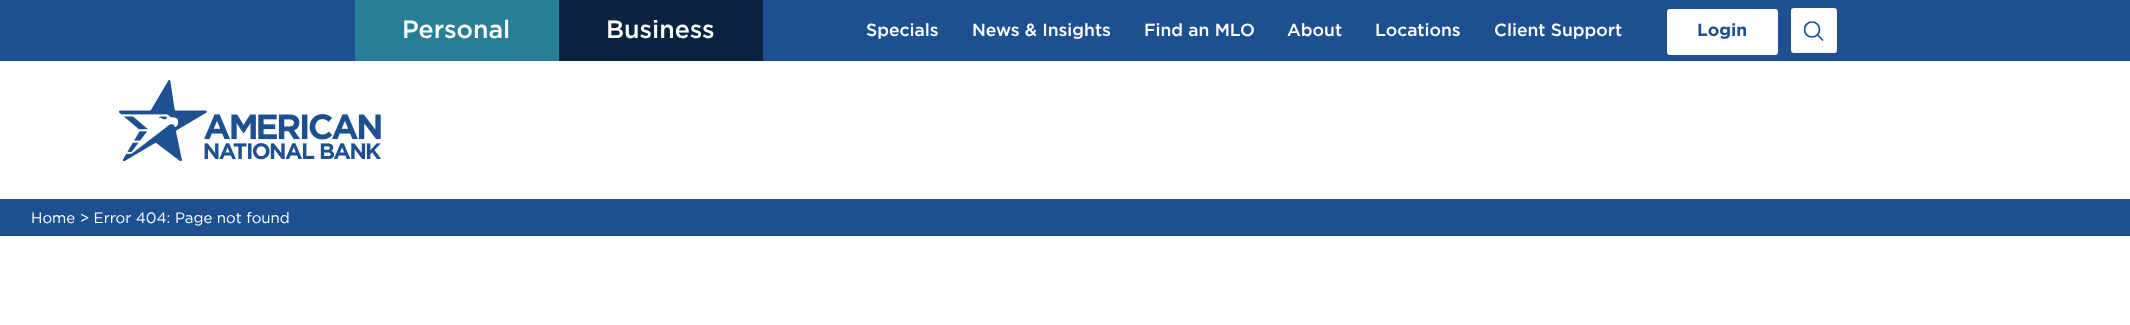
<svg xmlns="http://www.w3.org/2000/svg" width="2130" height="325" viewBox="0 0 2130 325">
  <defs>
    <clipPath id="clip1"><path d="M1804 21h20v20H1804z"/></clipPath>
  </defs>
  <rect width="100%" height="100%" fill="#fff"/>
  <path d="M0 0h2130v61H0z" fill="#1d4f91"/>
  <path d="M355 0h204v61H355z" fill="#267e97"/>
  <path d="M559 0h204v61H559z" fill="#0c2340"/>
  <rect x="1665.5" y="7.5" width="114" height="49" rx="4.5" fill="#fff" stroke="#1d4f91" stroke-width="3"/>
  <rect x="1789.5" y="6.5" width="49" height="48" rx="4.5" fill="#fff" stroke="#1d4f91" stroke-width="3"/>
  <g clip-path="url(#clip1)">
    <circle cx="1812" cy="29.5" r="7.5" fill="none" stroke="#1d4f91" stroke-width="1.7"/>
  </g>
  <path d="M1818 35.5L1822.5 40" fill="none" stroke="#1d4f91" stroke-width="1.7" stroke-linecap="round" stroke-linejoin="round"/>
  <image x="119" y="80" width="262" height="81" href="img/1.png"/>
  <path d="M0 199h2130v37H0z" fill="#1d4f91"/>
  <g font-family="Gotham" font-size="25" font-weight="500" fill="#fff">
    <text x="402" y="38">Personal</text>
    <text x="606" y="38">Business</text>
  </g>
  <g font-family="Gotham" font-size="17.5" font-weight="500" fill="#fff">
    <text x="866" y="36">Specials</text>
    <text x="972" y="36">News &amp; Insights</text>
    <text x="1144" y="36">Find an MLO</text>
    <text x="1287" y="36">About</text>
    <text x="1375" y="36">Locations</text>
    <text x="1494" y="36">Client Support</text>
  </g>
  <text x="1697" y="36" font-family="Gotham" font-size="17.5" font-weight="bold" fill="#1d4f91">Login</text>
  <text x="31" y="223" font-family="Gotham" font-size="15" fill="#fff">Home &gt; Error 404: Page not found</text>
</svg>
